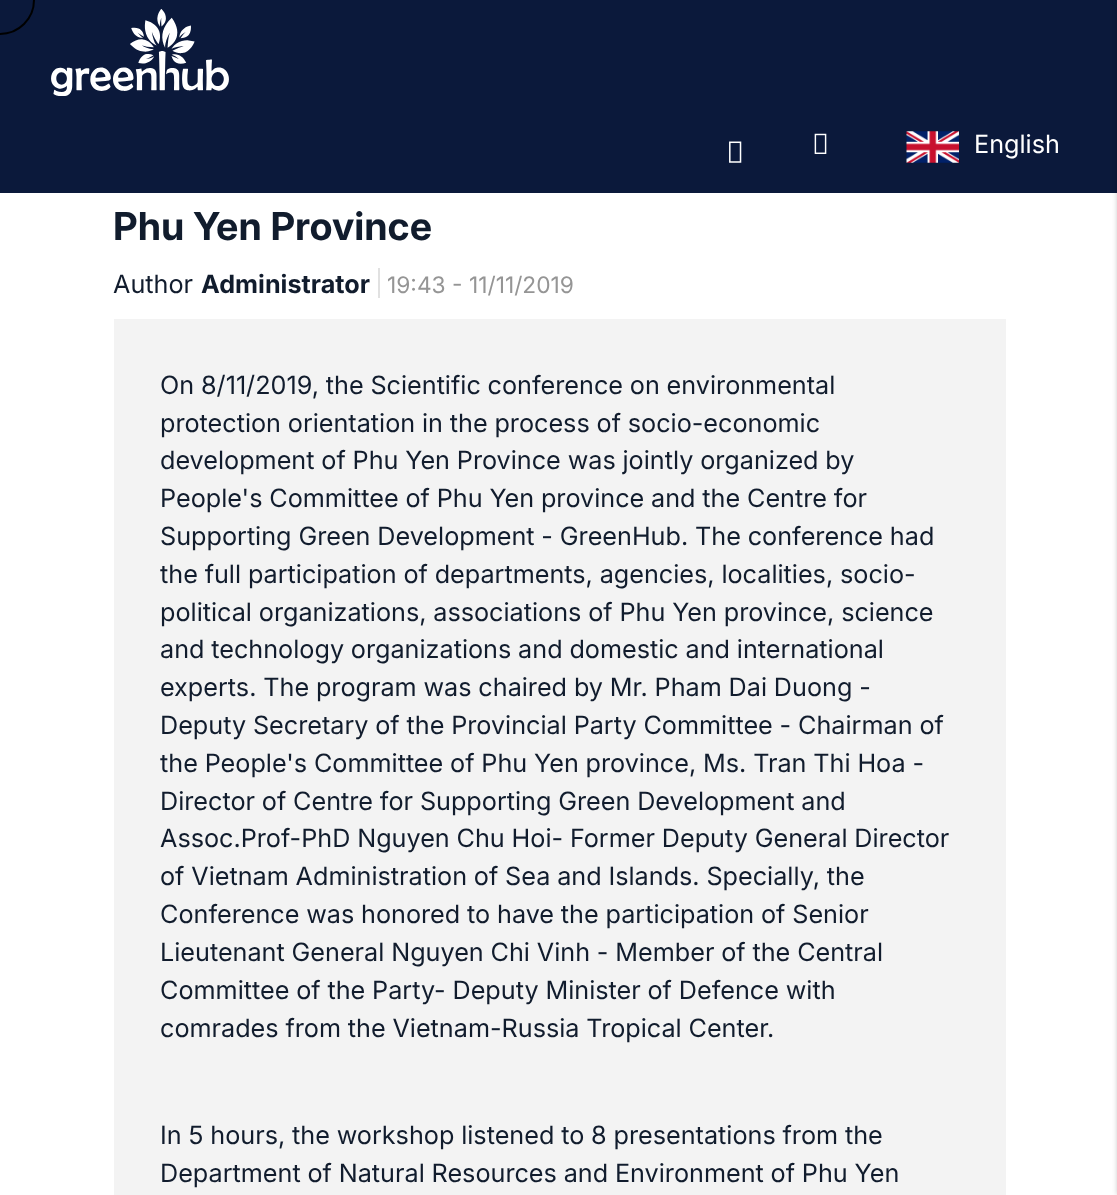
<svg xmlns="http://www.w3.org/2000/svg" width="1117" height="1195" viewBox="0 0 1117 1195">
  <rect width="100%" height="100%" fill="#fff"/>
  <path d="M0 0h1117v193H0z" fill="#0b193b"/>
  <circle cx="0" cy="0" r="34" fill="none" stroke="#000" stroke-width="2"/>
  <image x="51" y="9" width="178" height="87" href="img/1.png"/>
  <image x="729" y="141" width="13" height="22" href="img/2.png"/>
  <image x="814" y="133" width="13" height="21" href="img/3.png"/>
  <image x="906" y="131" width="53" height="32" href="img/4.png"/>
  <path d="M1117 0h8v1195H1117z" fill="#00000033" filter="blur(2.5px)"/>
  <path d="M378 268h2v30H378z" fill="#e1e1e1"/>
  <path d="M114 319h892v876H114z" fill="#f3f3f3"/>
  <text x="974" y="153" font-family="Inter" font-size="25.2" fill="#fff">English</text>
  <text x="113" y="240" font-family="Inter" font-size="38.5" font-weight="bold" fill="#111c2d">Phu Yen Province</text>
  <text x="113" y="293" font-family="Inter" font-size="25.2" fill="#111c2d">Author</text>
  <text x="201" y="293" font-family="'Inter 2'" font-size="25.2" font-weight="bold" fill="#111c2d">Administrator</text>
  <text x="387" y="293" font-family="Inter" font-size="22.75" fill="#959595">19:43 - 11/11/2019</text>
  <g font-family="Inter" font-size="25.2" fill="#111c2d">
    <text x="160" y="394" word-spacing="-0.25">On 8/11/2019, the Scientific conference on environmental</text>
    <text x="160" y="432" word-spacing="-0.25">protection orientation in the process of socio-economic</text>
    <text x="160" y="469" word-spacing="-0.25">development of Phu Yen Province was jointly organized by</text>
    <text x="160" y="507" word-spacing="-0.25">People's Committee of Phu Yen province and the Centre for</text>
    <text x="160" y="545" word-spacing="-0.25">Supporting Green Development - GreenHub. The conference had</text>
    <text x="160" y="583" word-spacing="-0.25">the full participation of departments, agencies, localities, socio-</text>
    <text x="160" y="621" word-spacing="-0.25">political organizations, associations of Phu Yen province, science</text>
    <text x="160" y="658" word-spacing="-0.25">and technology organizations and domestic and international</text>
    <text x="160" y="696" word-spacing="-0.25">experts. The program was chaired by Mr. Pham Dai Duong -</text>
    <text x="160" y="734" word-spacing="-0.25">Deputy Secretary of the Provincial Party Committee - Chairman of</text>
    <text x="160" y="772" word-spacing="-0.25">the People's Committee of Phu Yen province, Ms. Tran Thi Hoa -</text>
    <text x="160" y="810" word-spacing="-0.25">Director of Centre for Supporting Green Development and</text>
    <text x="160" y="847" word-spacing="-0.25">Assoc.Prof-PhD Nguyen Chu Hoi- Former Deputy General Director</text>
    <text x="160" y="885" word-spacing="-0.25">of Vietnam Administration of Sea and Islands. Specially, the</text>
    <text x="160" y="923" word-spacing="-0.25">Conference was honored to have the participation of Senior</text>
    <text x="160" y="961" word-spacing="-0.25">Lieutenant General Nguyen Chi Vinh - Member of the Central</text>
    <text x="160" y="999" word-spacing="-0.25">Committee of the Party- Deputy Minister of Defence with</text>
    <text x="160" y="1037" word-spacing="-0.25">comrades from the Vietnam-Russia Tropical Center.</text>
    <text x="160" y="1144" word-spacing="-0.25">In 5 hours, the workshop listened to 8 presentations from the</text>
    <text x="160" y="1182" word-spacing="-0.25">Department of Natural Resources and Environment of Phu Yen</text>
  </g>
</svg>
